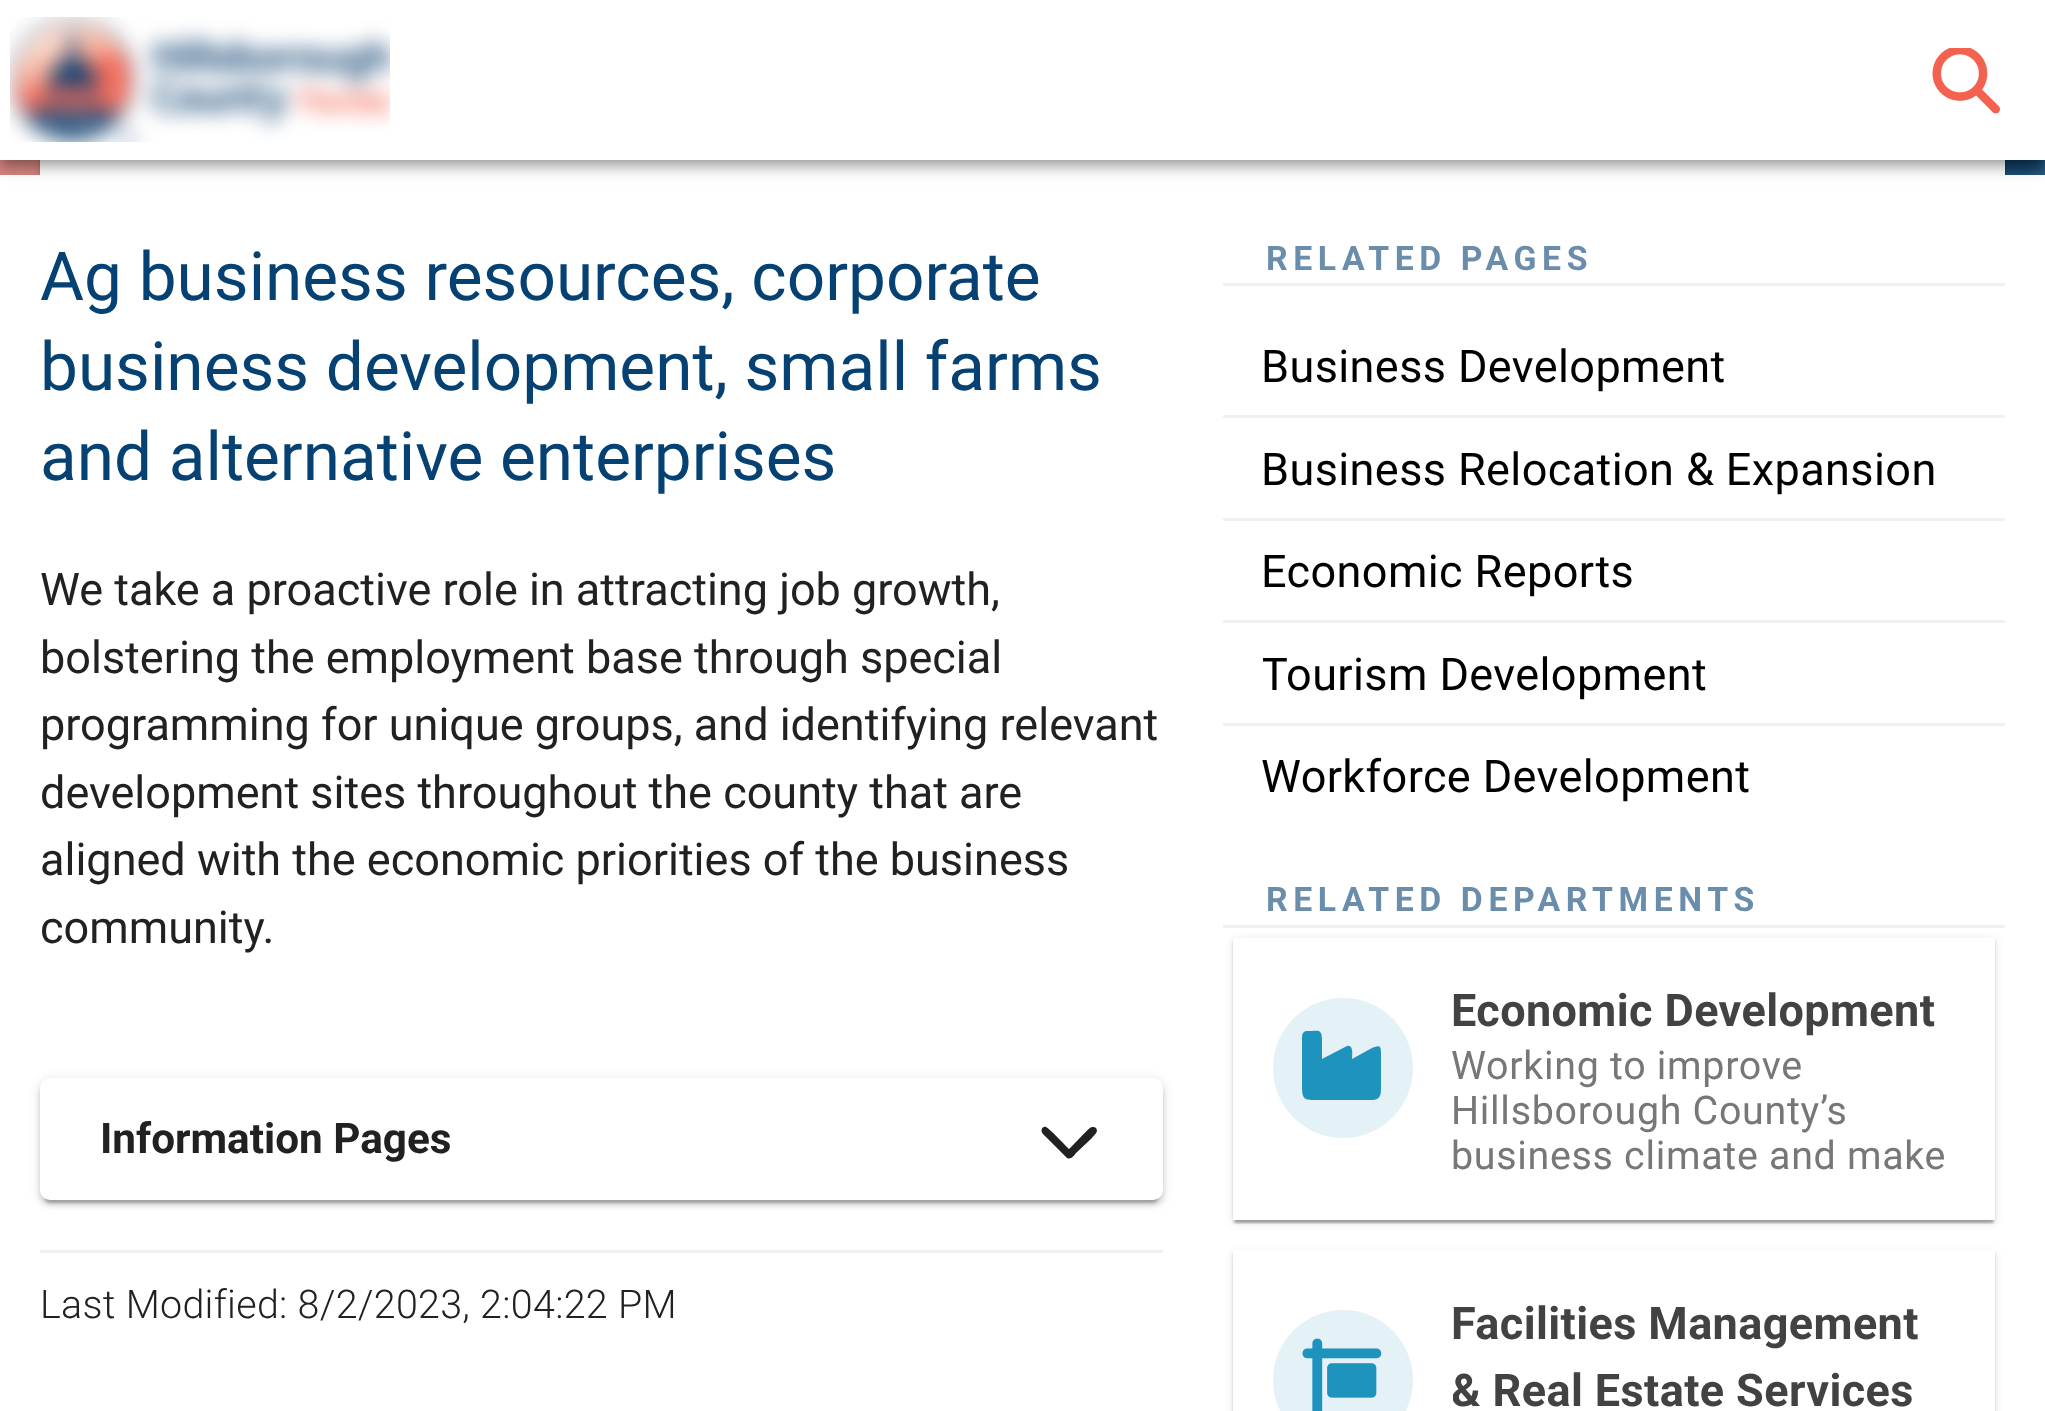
<svg xmlns="http://www.w3.org/2000/svg" width="2045" height="1411" viewBox="0 0 2045 1411">
  <defs>
    <linearGradient id="g1" gradientUnits="userSpaceOnUse" x1="384" y1="-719" x2="1661" y2="559"><stop offset="0" stop-color="#ff6f5b" stop-opacity="0.8"/><stop offset="1" stop-color="#054173" stop-opacity="0.8"/></linearGradient>
    <clipPath id="clip1"><path d="M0 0h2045v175H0z"/></clipPath>
    <clipPath id="clip2"><path d="M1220 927H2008V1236H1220ZM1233 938H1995V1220H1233Z" clip-rule="evenodd"/></clipPath>
    <clipPath id="clip3"><path d="M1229 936H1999V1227H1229ZM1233 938H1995V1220H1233Z" clip-rule="evenodd"/></clipPath>
    <clipPath id="clip4"><path d="M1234 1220h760v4H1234z"/></clipPath>
    <clipPath id="clip5"><path d="M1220 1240H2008V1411H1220ZM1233 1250H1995V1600H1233Z" clip-rule="evenodd"/></clipPath>
    <clipPath id="clip6"><path d="M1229 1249H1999V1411H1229ZM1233 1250H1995V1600H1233Z" clip-rule="evenodd"/></clipPath>
    <clipPath id="clip7"><path d="M1263 640h702v68H1263z"/></clipPath>
    <clipPath id="clip8"><path d="M1453 1290h502v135H1453z"/></clipPath>
  </defs>
  <rect width="100%" height="100%" fill="#fff"/>
  <image x="0" y="160" width="2045" height="15" href="img/3.png"/>
  <path d="M0 160h2045v15H0z" fill="url(#g1)"/>
  <g clip-path="url(#clip1)">
    <path d="M40 -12h1965v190H40z" fill="#0000001f" filter="blur(4px)"/>
    <path d="M40 -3h1965v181H40z" fill="#00000024" filter="blur(1px)"/>
  </g>
  <path d="M40 160h1965v15H40z" fill="#fff"/>
  <path d="M0 3h2045v160H0z" fill="#0000001f" filter="blur(12.5px)"/>
  <path d="M0 10h2045v160H0z" fill="#00000024" filter="blur(6px)"/>
  <path d="M3 8h2040v155H3z" fill="#00000033" filter="blur(5px)"/>
  <path d="M0 0h2045v160H0z" fill="#fff"/>
  <image x="10" y="17" width="380" height="125" href="img/1.png"/>
  <image x="1932" y="48" width="68" height="66" href="img/2.png"/>
  <rect x="40" y="1080" width="1123" height="123" rx="10" fill="#0000001f" filter="blur(6px)"/>
  <rect x="40" y="1083" width="1123" height="122" rx="10" fill="#00000024" filter="blur(2.5px)"/>
  <rect x="45" y="1090" width="1113" height="113" rx="5" fill="#00000033" filter="blur(1px)"/>
  <rect x="40" y="1078" width="1123" height="122" rx="10" fill="#fff"/>
  <path d="M1066 1157C1070 1161 1074 1156 1076 1153L1092 1138C1094 1135 1099 1132 1096 1128C1095 1127 1094 1127 1092 1127C1089 1127 1073 1146 1069 1149C1066 1146 1049 1128 1046 1127C1042 1126 1040 1131 1043 1134Z" fill="#212121"/>
  <path d="M40 1250h1123v3H40z" fill="#f0f0f0"/>
  <path d="M1223 283h782v3H1223z" fill="#f0f0f0"/>
  <path d="M1223 415h782v3H1223z" fill="#f0f0f0"/>
  <path d="M1223 518h782v3H1223z" fill="#f0f0f0"/>
  <path d="M1223 620h782v3H1223z" fill="#f0f0f0"/>
  <path d="M1223 723h782v3H1223z" fill="#f0f0f0"/>
  <path d="M1223 925h782v3H1223z" fill="#f0f0f0"/>
  <g clip-path="url(#clip2)">
    <path d="M1233 940h762v283H1233z" fill="#0000001f" filter="blur(4px)"/>
  </g>
  <g clip-path="url(#clip3)">
    <path d="M1233 940h762v283H1233z" fill="#00000024" filter="blur(1px)"/>
  </g>
  <g clip-path="url(#clip4)">
    <path d="M1235 945h758v278H1235z" fill="#00000033" filter="blur(1px)"/>
  </g>
  <path d="M1307 1031C1301 1031 1302 1038 1302 1042V1086C1302 1101 1305 1100 1320 1100H1363C1374 1100 1381 1102 1381 1089V1053C1381 1045 1379 1045 1372 1048L1352 1059C1352 1056 1354 1044 1347 1046L1322 1059V1040C1322 1028 1318 1031 1307 1031Z" fill="#1d93bf"/>
  <circle cx="1343" cy="1068" r="70" fill="#1d93bf1f"/>
  <g clip-path="url(#clip5)">
    <path d="M1233 1253h762v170H1233z" fill="#0000001f" filter="blur(4px)"/>
  </g>
  <g clip-path="url(#clip6)">
    <path d="M1233 1253h762v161H1233z" fill="#00000024" filter="blur(1px)"/>
  </g>
  <image x="1302" y="1338" width="80" height="73" href="img/4.png"/>
  <circle cx="1343" cy="1380" r="70" fill="#1d93bf1f"/>
  <g font-family="Roboto" font-size="67.5" fill="#054173">
    <text x="40" y="300">Ag business resources, corporate</text>
    <text x="40" y="390">business development, small farms</text>
    <text x="40" y="480">and alternative enterprises</text>
  </g>
  <g font-family="Roboto" font-size="45" fill="#212121">
    <text x="40" y="605">We take a proactive role in attracting job growth,</text>
    <text x="40" y="673">bolstering the employment base through special</text>
    <text x="40" y="740">programming for unique groups, and identifying relevant</text>
    <text x="40" y="808">development sites throughout the county that are</text>
    <text x="40" y="875">aligned with the economic priorities of the business</text>
    <text x="40" y="943">community.</text>
  </g>
  <text x="100" y="1153" font-family="Roboto" font-size="42.25" font-weight="bold" fill="#212121">Information Pages</text>
  <text x="40" y="1318" font-family="Roboto" font-size="39.4" font-weight="300" letter-spacing="0.3" fill="#212121">Last Modified: 8/2/2023, 2:04:22 PM</text>
  <text x="1266" y="270" font-family="Roboto" font-size="33.75" font-weight="bold" letter-spacing="5.6" fill="#698dab">RELATED PAGES</text>
  <g font-family="Roboto" font-size="45" letter-spacing="0.4" fill="#000">
    <text x="1261" y="382">Business Development</text>
    <text x="1261" y="485">Business Relocation &amp; Expansion</text>
    <text x="1261" y="587">Economic Reports</text>
  </g>
  <g clip-path="url(#clip7)">
    <text x="1261" y="690" font-family="Roboto" font-size="45" letter-spacing="0.4" fill="#000">Tourism Development</text>
  </g>
  <text x="1261" y="792" font-family="Roboto" font-size="45" letter-spacing="0.4" fill="#000">Workforce Development</text>
  <text x="1266" y="911" font-family="Roboto" font-size="33.75" font-weight="bold" letter-spacing="5.6" fill="#698dab">RELATED DEPARTMENTS</text>
  <text x="1451" y="1026" font-family="Roboto" font-size="45" font-weight="bold" letter-spacing="0.4" fill="#424242">Economic Development</text>
  <g font-family="Roboto" font-size="39.4" letter-spacing="0.7" fill="#777">
    <text x="1451" y="1079">Working to improve</text>
    <text x="1451" y="1124">Hillsborough County’s</text>
    <text x="1451" y="1169">business climate and make</text>
  </g>
  <text x="1451" y="1339" font-family="Roboto" font-size="45" font-weight="bold" letter-spacing="0.4" fill="#424242">Facilities Management</text>
  <g clip-path="url(#clip8)">
    <text x="1451" y="1406" font-family="Roboto" font-size="45" font-weight="bold" letter-spacing="0.4" fill="#424242">&amp; Real Estate Services</text>
  </g>
</svg>
